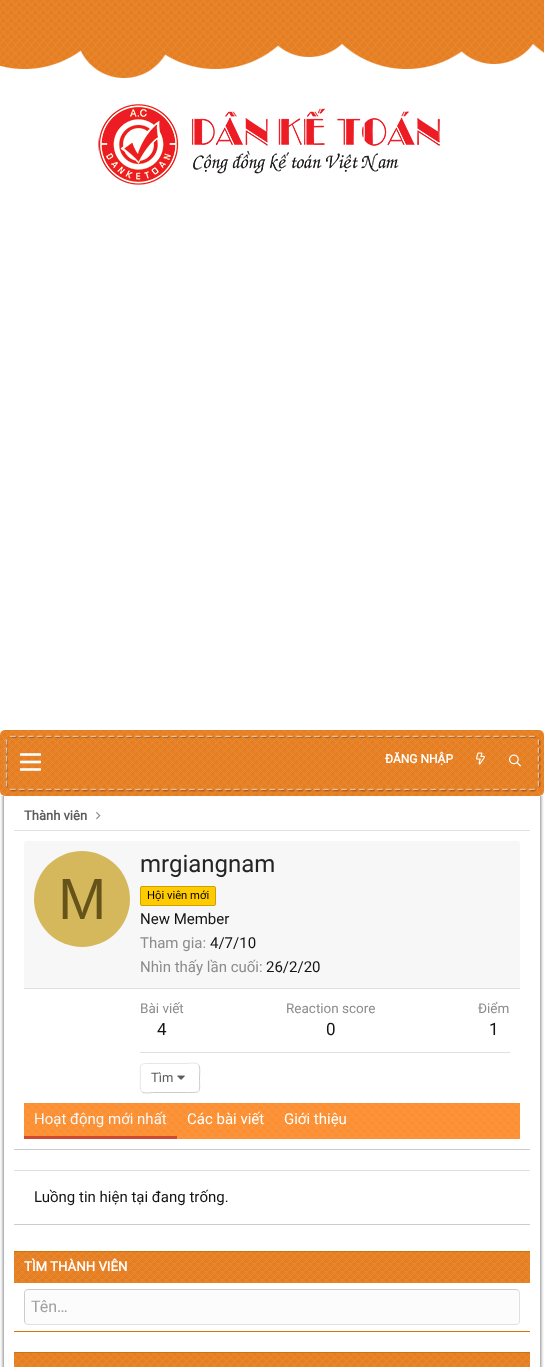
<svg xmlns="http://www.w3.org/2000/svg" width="544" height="1367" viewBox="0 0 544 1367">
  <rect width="100%" height="100%" fill="#fff"/>
  <image x="0" y="0" width="544" height="78" href="img/1.png"/>
  <image x="98" y="104" width="342" height="81" href="img/2.png"/>
  <rect y="730" width="544" height="66" rx="5" fill="#e67e22"/>
  <image x="0" y="730" width="544" height="66" href="img/3.png"/>
  <image x="4" y="735" width="537" height="57" href="img/4.png"/>
  <image x="20" y="753" width="21" height="18" href="img/5.png"/>
  <image x="476" y="752" width="9" height="13" href="img/6.png"/>
  <image x="509" y="754" width="12" height="13" href="img/7.png"/>
  <image x="0" y="796" width="544" height="571" href="img/8.png"/>
  <image x="96" y="812" width="5" height="8" href="img/9.png"/>
  <path d="M14 830h516v1H14z" fill="#e0e0e0"/>
  <path d="M14 1149h516v1H14z" fill="#ccc"/>
  <path d="M27 841H517C518.5 841 520 842.5 520 844V989H24V844C24 842.5 25.5 841 27 841Z" fill="#f7f7f7"/>
  <path d="M24 988h496v1H24z" fill="#e0e0e0"/>
  <circle cx="82" cy="899" r="48" fill="#d6b85c"/>
  <rect x="140.5" y="886.5" width="75" height="19" rx="1.5" fill="#ffcb00" stroke="#cca200"/>
  <path d="M140 1052h370v1H140z" fill="#e0e0e0"/>
  <path d="M198.5 1064.5C200.5 1066.5 199.5 1075 199.5 1078C199.5 1093 202 1092.5 187.5 1092.5H152.5C152 1092.5 144 1094 141.5 1091.5" fill="none" stroke="#ccc"/>
  <path d="M141.5 1091.5C139.5 1089.5 140.5 1081 140.5 1078C140.5 1063 138 1063.5 152.5 1063.5H187.5C188 1063.5 196 1062 198.5 1064.5" fill="none" stroke="#e6e6e6"/>
  <image x="177" y="1075" width="8" height="5" href="img/10.png"/>
  <path d="M24 1103h496v36H24z" fill="#fb8f31"/>
  <image x="24" y="1103" width="496" height="36" href="img/11.png"/>
  <path d="M24 1136h153v3H24z" fill="#d44a30"/>
  <path d="M14 1170h516v1H14z" fill="#e0e0e0"/>
  <path d="M14 1224h516v1H14z" fill="#ccc"/>
  <path d="M14 1251h516v1H14z" fill="#c7780c"/>
  <path d="M14 1331h516v1H14z" fill="#c7780c"/>
  <path d="M14 1252h516v31H14z" fill="#e67e22"/>
  <image x="14" y="1252" width="516" height="31" href="img/12.png"/>
  <rect x="24" y="1289" width="496" height="36" rx="4" fill="#fcfcfc"/>
  <path d="M518.5 1290.5C519 1291 519.5 1292 519.5 1293V1321C519.5 1322 519 1323 518.5 1323.5C518 1324 517 1324.5 516 1324.5H28C27 1324.5 26 1324 25.5 1323.5" fill="none" stroke="#e0e0e0"/>
  <path d="M25.5 1323.5C25 1323 24.5 1322 24.5 1321V1293C24.5 1292 25 1291 25.5 1290.5C26 1290 27 1289.5 28 1289.5H516C517 1289.5 518 1290 518.5 1290.5" fill="none" stroke="#ccc"/>
  <path d="M14 1352h516v1H14z" fill="#c7780c"/>
  <path d="M14 1353h516v14H14z" fill="#e67e22"/>
  <image x="14" y="1353" width="516" height="14" href="img/13.png"/>
  <text x="385" y="763" font-family="Roboto" font-size="12" font-weight="bold" fill="#fff">ĐĂNG NHẬP</text>
  <text x="24" y="820" font-family="Roboto" font-size="13" font-weight="bold" fill="#5c5c5c">Thành viên</text>
  <text x="58" y="919" font-family="Liberation Sans" font-size="58" fill="#66531a">M</text>
  <text x="140" y="872" font-family="Roboto" font-size="24" fill="#242424">mrgiangnam</text>
  <text x="147" y="899" font-family="Roboto" font-size="11.25" fill="#000">Hội viên mới</text>
  <text x="140" y="924" font-family="Roboto" font-size="15" fill="#141414">New Member</text>
  <text x="140" y="948" font-family="Roboto" font-size="15" fill="#8c8c8c">Tham gia:</text>
  <text x="210" y="948" font-family="Roboto" font-size="15" fill="#141414">4/7/10</text>
  <text x="140" y="972" font-family="Roboto" font-size="15" fill="#8c8c8c">Nhìn thấy lần cuối:</text>
  <text x="266" y="972" font-family="Roboto" font-size="15" fill="#141414">26/2/20</text>
  <text x="140" y="1013" font-family="Roboto" font-size="13.5" fill="#8c8c8c">Bài viết</text>
  <text x="157" y="1035" font-family="Roboto" font-size="17" fill="#141414">4</text>
  <text x="286" y="1013" font-family="Roboto" font-size="13.5" fill="#8c8c8c">Reaction score</text>
  <text x="326" y="1035" font-family="Roboto" font-size="17" fill="#141414">0</text>
  <text x="478" y="1013" font-family="Roboto" font-size="13.5" fill="#8c8c8c">Điểm</text>
  <text x="489" y="1035" font-family="Roboto" font-size="17" fill="#141414">1</text>
  <text x="151" y="1082" font-family="Roboto" font-size="13" fill="#5c5c5c">Tìm</text>
  <text x="34" y="1124" font-family="Roboto" font-size="15" fill="#f7f7f7">Hoạt động mới nhất</text>
  <g font-family="Roboto" font-size="15" fill="#fff">
    <text x="187" y="1124">Các bài viết</text>
    <text x="284" y="1124">Giới thiệu</text>
  </g>
  <text x="34" y="1202" font-family="Roboto" font-size="15" fill="#141414">Luồng tin hiện tại đang trống.</text>
  <text x="24" y="1271" font-family="Roboto" font-size="13.25" font-weight="bold" fill="#fff">TÌM THÀNH VIÊN</text>
  <text x="31" y="1312" font-family="Roboto" font-size="16" fill="#9f9f9f">Tên…</text>
</svg>
